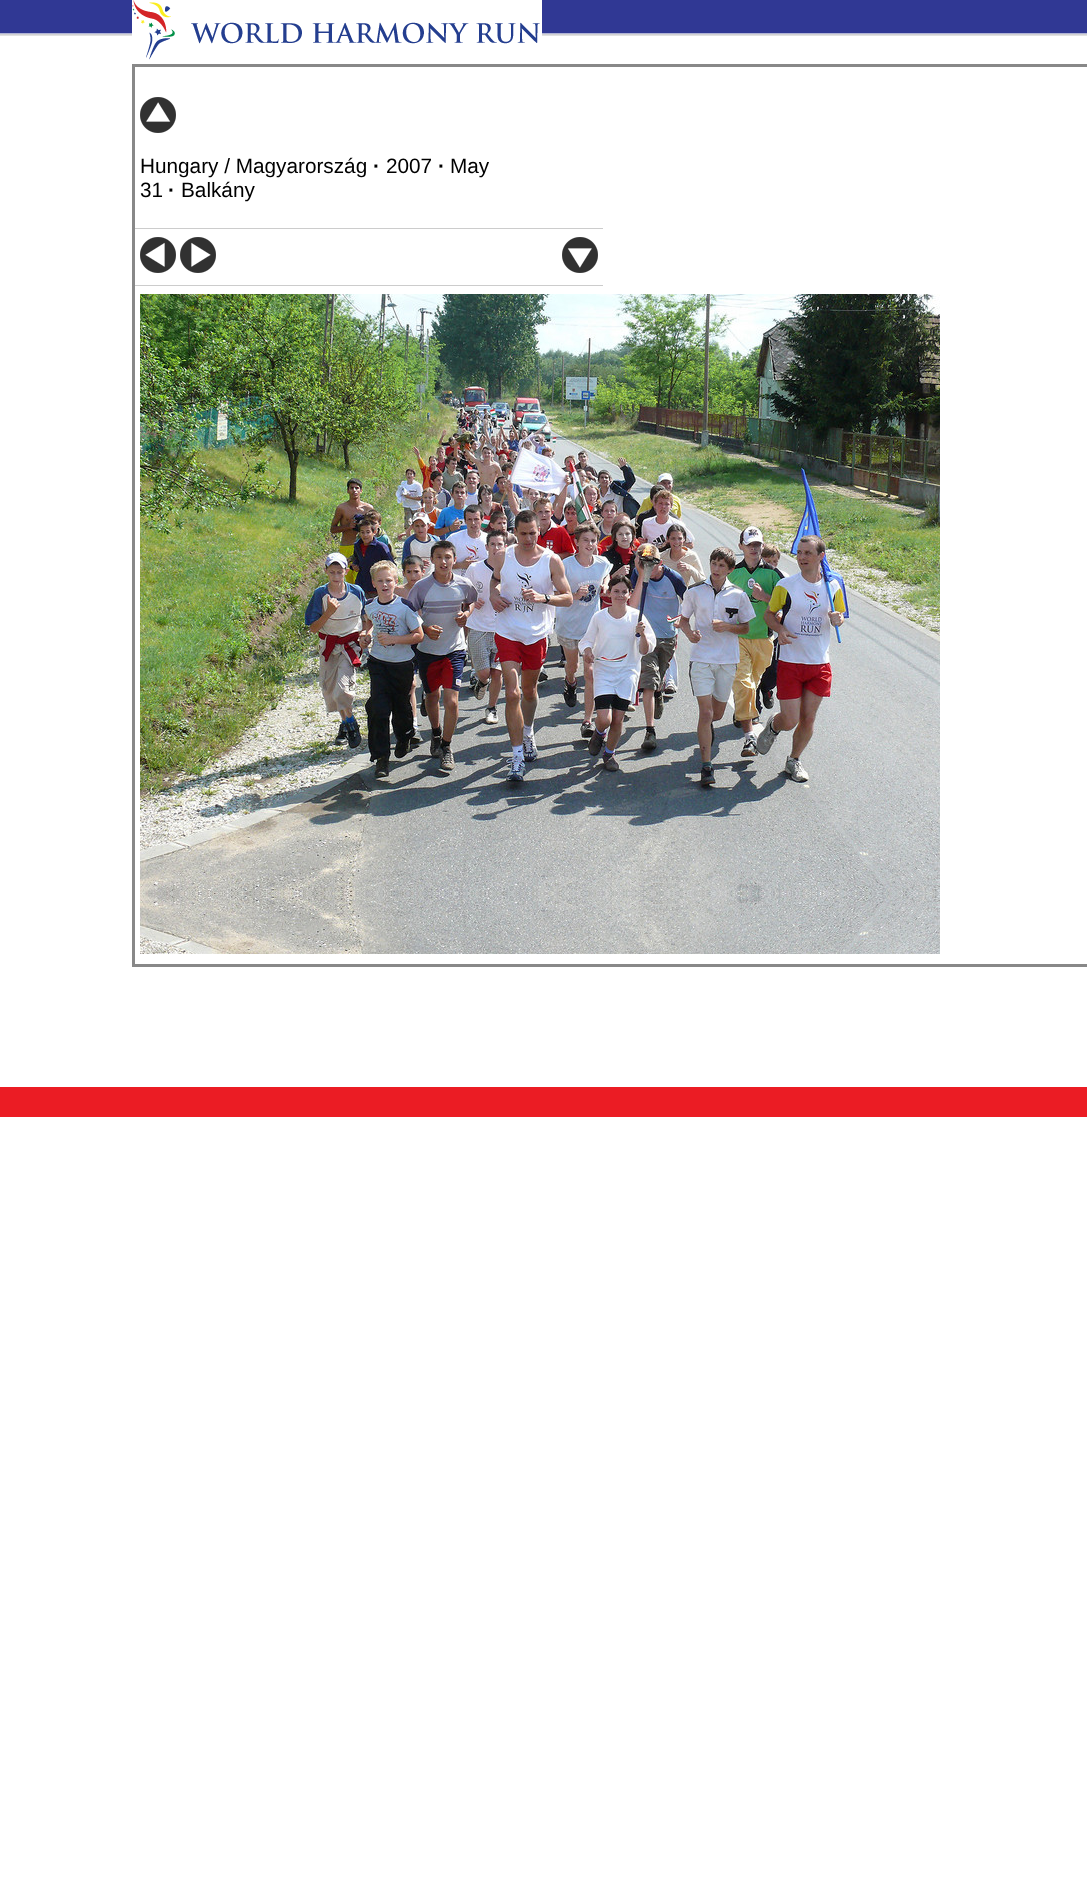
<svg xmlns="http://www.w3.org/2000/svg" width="1087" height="1904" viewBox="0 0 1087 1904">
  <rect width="100%" height="100%" fill="#fff"/>
  <image x="0" y="0" width="1087" height="36" href="img/1.png"/>
  <image x="132" y="0" width="410" height="60" href="img/2.png"/>
  <path d="M133.5 65.5h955v900H133.5z" fill="none" stroke="#888" stroke-width="3"/>
  <image x="140" y="97" width="36" height="36" href="img/3.png"/>
  <path d="M135 228h468v1H135z" fill="#ccc"/>
  <image x="140" y="237" width="36" height="36" href="img/4.png"/>
  <image x="180" y="237" width="36" height="36" href="img/5.png"/>
  <image x="562" y="237" width="36" height="36" href="img/6.png"/>
  <path d="M135 285h468v1H135z" fill="#ccc"/>
  <image x="140" y="294" width="800" height="600" href="img/7.png"/>
  <image x="140" y="894" width="800" height="60" href="img/8.png"/>
  <path d="M0 1087h1087v30H0z" fill="#eb1c24"/>
  <text x="140" y="173" font-family="Liberation Sans" font-size="20.75" fill="#000">Hungary / Magyarország</text>
  <text x="373" y="173" font-family="Liberation Sans" font-size="20.75" font-weight="bold" fill="#000">·</text>
  <text x="386" y="173" font-family="Liberation Sans" font-size="20.75" fill="#000">2007</text>
  <text x="438" y="173" font-family="Liberation Sans" font-size="20.75" font-weight="bold" fill="#000">·</text>
  <g font-family="Liberation Sans" font-size="20.75" fill="#000">
    <text x="450" y="173">May</text>
    <text x="140" y="197">31</text>
  </g>
  <text x="168" y="197" font-family="Liberation Sans" font-size="20.75" font-weight="bold" fill="#000">·</text>
  <text x="181" y="197" font-family="Liberation Sans" font-size="20.75" fill="#000">Balkány</text>
</svg>
